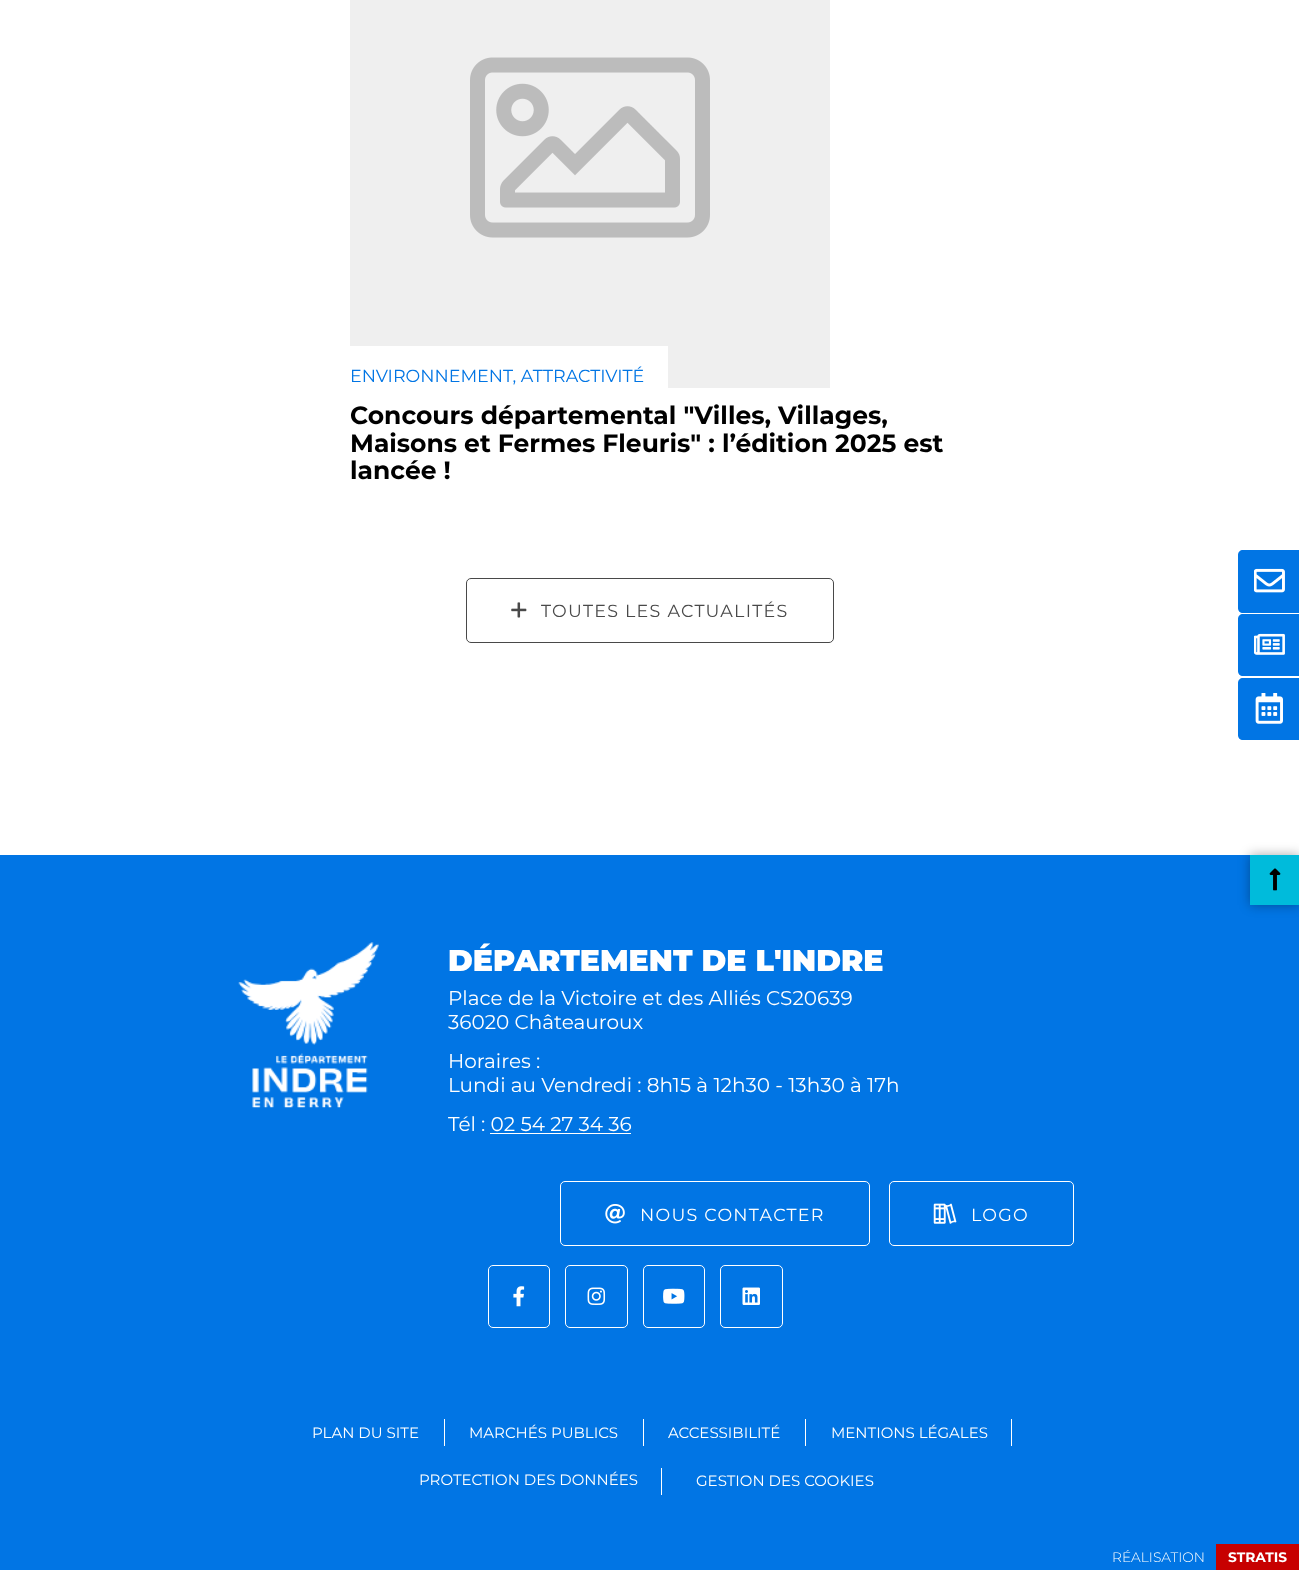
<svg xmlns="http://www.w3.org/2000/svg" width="1299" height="1571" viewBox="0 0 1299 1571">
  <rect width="100%" height="100%" fill="#fff"/>
  <path d="M350 0h480v388H350z" fill="#efefef"/>
  <image x="470" y="57" width="240" height="181" href="img/1.png"/>
  <path d="M350 346h318v42H350z" fill="#fff"/>
  <rect x="466.5" y="578.5" width="367" height="64" rx="4.5" fill="none" stroke="#494949"/>
  <image x="511" y="602" width="16" height="16" href="img/2.png"/>
  <path d="M1243 550H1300V613H1243C1240 613 1238 611 1238 608V555C1238 552 1240 550 1243 550Z" fill="#0175e4"/>
  <image x="1254" y="568" width="31" height="25" href="img/3.png"/>
  <path d="M1243 614H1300V676H1243C1240 676 1238 674 1238 671V619C1238 616 1240 614 1243 614Z" fill="#0175e4"/>
  <image x="1254" y="633" width="31" height="22" href="img/4.png"/>
  <path d="M1243 678H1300V740H1243C1240 740 1238 738 1238 735V683C1238 680 1240 678 1243 678Z" fill="#0175e4"/>
  <image x="1255" y="693" width="28" height="31" href="img/5.png"/>
  <path d="M0 855h1299v715H0z" fill="#0175e4"/>
  <path d="M1250 855h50v50H1250z" fill="#00000057" filter="blur(6px)"/>
  <path d="M1250 855h49v50H1250z" fill="#00bbdb"/>
  <image x="1269" y="868" width="12" height="23" href="img/6.png"/>
  <image x="238" y="942" width="141" height="166" href="img/7.png"/>
  <path d="M490 1133h141v1H490z" fill="#fff"/>
  <rect x="560.5" y="1181.5" width="309" height="64" rx="4.5" fill="none" stroke="#fff"/>
  <image x="605" y="1204" width="20" height="20" href="img/8.png"/>
  <rect x="889.5" y="1181.5" width="184" height="64" rx="4.5" fill="none" stroke="#fff"/>
  <image x="933" y="1203" width="24" height="21" href="img/9.png"/>
  <rect x="488.5" y="1265.5" width="61" height="62" rx="4.5" fill="none" stroke="#fff"/>
  <image x="513" y="1286" width="12" height="21" href="img/10.png"/>
  <rect x="565.5" y="1265.5" width="62" height="62" rx="4.5" fill="none" stroke="#fff"/>
  <image x="587" y="1287" width="19" height="18" href="img/11.png"/>
  <rect x="643.5" y="1265.5" width="61" height="62" rx="4.5" fill="none" stroke="#fff"/>
  <image x="663" y="1288" width="22" height="16" href="img/12.png"/>
  <rect x="720.5" y="1265.5" width="62" height="62" rx="4.5" fill="none" stroke="#fff"/>
  <image x="742" y="1287" width="18" height="18" href="img/13.png"/>
  <path d="M444 1419h1v27H444z" fill="#fff"/>
  <path d="M643 1419h1v27H643z" fill="#fff"/>
  <path d="M805 1419h1v27H805z" fill="#fff"/>
  <path d="M1011 1419h1v27H1011z" fill="#fff"/>
  <path d="M661 1468h1v27H661z" fill="#fff"/>
  <path d="M1216 1544h83v26H1216z" fill="#c70000"/>
  <text x="350" y="382" font-family="Montserrat" font-size="17.5" fill="#0175e4">ENVIRONNEMENT, ATTRACTIVITÉ</text>
  <g font-family="Montserrat" font-size="25" font-weight="bold" fill="#000">
    <text x="350" y="424">Concours départemental "Villes, Villages,</text>
    <text x="350" y="452">Maisons et Fermes Fleuris" : l’édition 2025 est</text>
    <text x="350" y="479">lancée !</text>
  </g>
  <text x="541" y="617" font-family="Montserrat" font-size="17.5" letter-spacing="1.25" fill="#494949">TOUTES LES ACTUALITÉS</text>
  <text x="448" y="971" font-family="Montserrat" font-size="30" font-weight="900" fill="#fff">DÉPARTEMENT DE L'INDRE</text>
  <g font-family="Montserrat" font-size="20" fill="#fff">
    <text x="448" y="1005">Place de la Victoire et des Alliés CS20639</text>
    <text x="448" y="1029">36020 Châteauroux</text>
    <text x="448" y="1068">Horaires :</text>
    <text x="448" y="1092">Lundi au Vendredi : 8h15 à 12h30 - 13h30 à 17h</text>
    <text x="448" y="1131">Tél : 02 54 27 34 36</text>
  </g>
  <g font-family="Montserrat" font-size="17.5" letter-spacing="1.25" fill="#fff">
    <text x="640" y="1221">NOUS CONTACTER</text>
    <text x="971" y="1221">LOGO</text>
  </g>
  <g font-family="Montserrat" font-size="15" fill="#fff">
    <text x="312" y="1438">PLAN DU SITE</text>
    <text x="469" y="1438">MARCHÉS PUBLICS</text>
    <text x="668" y="1438">ACCESSIBILITÉ</text>
    <text x="831" y="1438">MENTIONS LÉGALES</text>
    <text x="419" y="1485">PROTECTION DES DONNÉES</text>
    <text x="696" y="1486">GESTION DES COOKIES</text>
  </g>
  <text x="1112" y="1562" font-family="Montserrat" font-size="13.75" font-weight="300" fill="#fff">RÉALISATION</text>
  <text x="1228" y="1562" font-family="Montserrat" font-size="13.75" font-weight="bold" fill="#fff">STRATIS</text>
</svg>
